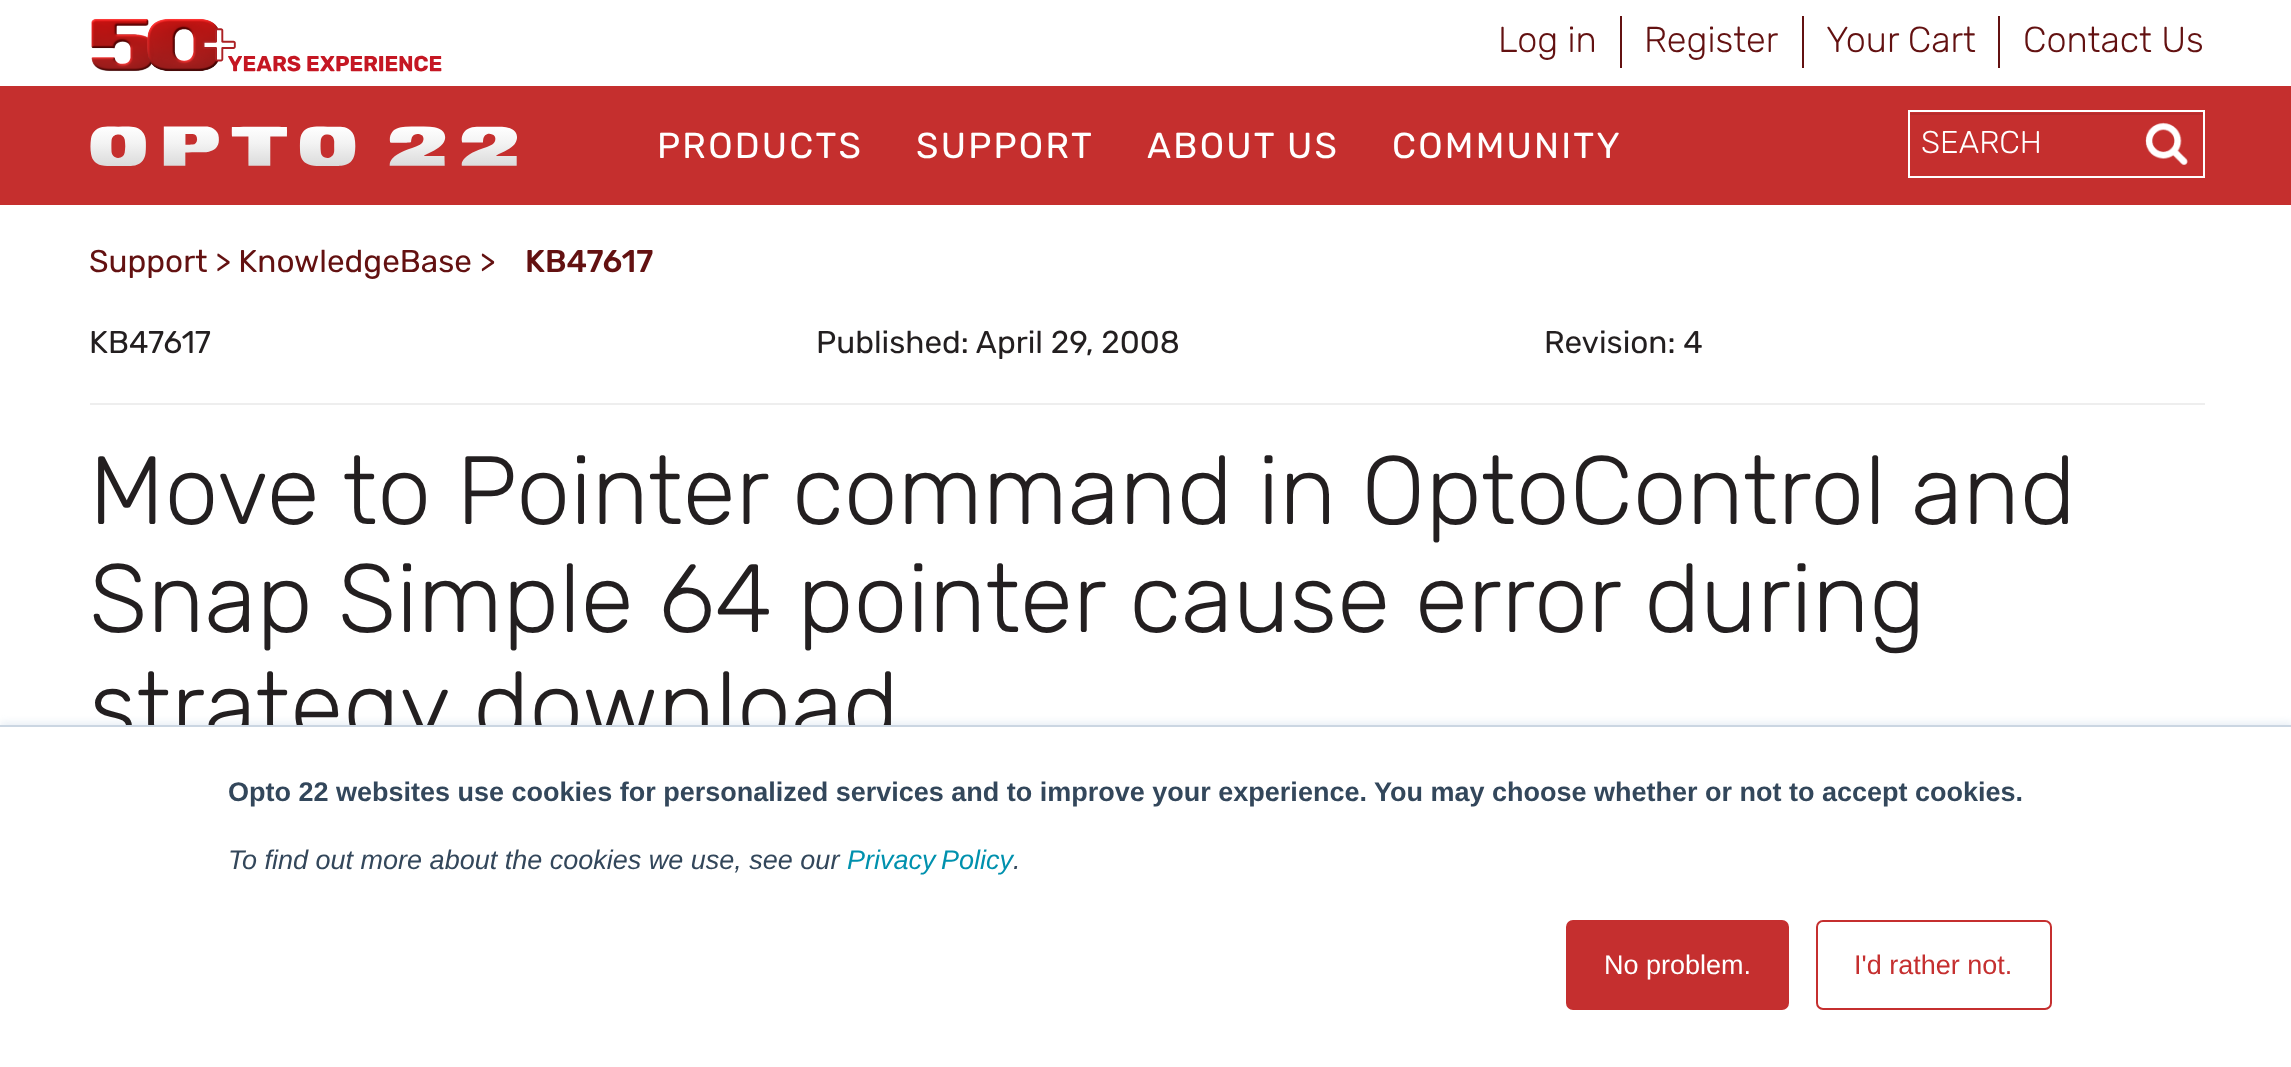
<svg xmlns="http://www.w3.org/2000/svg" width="2291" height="1067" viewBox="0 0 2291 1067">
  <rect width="100%" height="100%" fill="#fff"/>
  <image x="91" y="18" width="351" height="54" href="img/1.png"/>
  <path d="M1620 16h2v52H1620z" fill="#631111"/>
  <path d="M1802 16h2v52H1802z" fill="#631111"/>
  <path d="M1998 16h2v52H1998z" fill="#631111"/>
  <path d="M0 86h2291v119H0z" fill="#c52f2e"/>
  <image x="90" y="126" width="427" height="40" href="img/2.png"/>
  <path d="M1910 113h293v2H1910z" fill="#b62b2b"/>
  <path d="M1909 111h295v66H1909z" fill="none" stroke="#fff" stroke-width="2"/>
  <image x="2145" y="122" width="43" height="43" href="img/3.png"/>
  <path d="M90 403h2115v2H90z" fill="#eee"/>
  <path d="M0 722h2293v345H0z" fill="#eaf0f6" filter="blur(3.5px)"/>
  <g font-family="Rubik" font-size="36" font-weight="300" fill="#631111">
    <text x="1498" y="52">Log in</text>
    <text x="1644" y="52">Register</text>
    <text x="1826" y="52">Your Cart</text>
    <text x="2023" y="52">Contact Us</text>
  </g>
  <g font-family="Rubik" font-size="36" letter-spacing="2.25" fill="#fff">
    <text x="657" y="158">PRODUCTS</text>
    <text x="916" y="158">SUPPORT</text>
    <text x="1147" y="158">ABOUT US</text>
    <text x="1392" y="158">COMMUNITY</text>
  </g>
  <text x="1921" y="153" font-family="Rubik" font-size="31.5" font-weight="300" fill="#fff">SEARCH</text>
  <text x="89" y="272" font-family="Rubik" font-size="31.5" fill="#631111">Support &gt; KnowledgeBase &gt;</text>
  <text x="525" y="272" font-family="Rubik" font-size="31.5" font-weight="500" fill="#631111">KB47617</text>
  <g font-family="Rubik" font-size="31.5" fill="#231f20">
    <text x="89" y="353">KB47617</text>
    <text x="816" y="353">Published: April 29, 2008</text>
    <text x="1544" y="353">Revision: 4</text>
  </g>
  <g font-family="Rubik" font-size="96.75" font-weight="300" fill="#231f20">
    <text x="89" y="524">Move to Pointer command in OptoControl and</text>
    <text x="89" y="632">Snap Simple 64 pointer cause error during</text>
    <text x="89" y="740">strategy download</text>
  </g>
  <path d="M0 727h2291v340H0z" fill="#fff"/>
  <path d="M0 725h2291v2H0z" fill="#cbd6e2"/>
  <text x="228" y="801" font-family="Liberation Sans" font-size="27" font-weight="bold" fill="#33475b">Opto 22 websites use cookies for personalized services and to improve your experience. You may choose whether or not to accept cookies.</text>
  <text x="228" y="869" font-family="Liberation Sans" font-size="27" font-style="italic" fill="#33475b">To find out more about the cookies we use, see our</text>
  <text x="847" y="869" word-spacing="-2" font-family="Liberation Sans" font-size="27" font-style="italic" fill="#0091ae">Privacy Policy</text>
  <text x="1013" y="869" font-family="Liberation Sans" font-size="27" font-style="italic" fill="#33475b">.</text>
  <rect x="1567" y="921" width="221" height="88" rx="6" fill="#c52f2f" stroke="#c52f2f" stroke-width="2"/>
  <text x="1604" y="974" font-family="Liberation Sans" font-size="27" fill="#fff">No problem.</text>
  <rect x="1817" y="921" width="234" height="88" rx="6" fill="none" stroke="#c52f2f" stroke-width="2"/>
  <text x="1854" y="974" font-family="Liberation Sans" font-size="27" fill="#c52f2f">I'd rather not.</text>
</svg>
